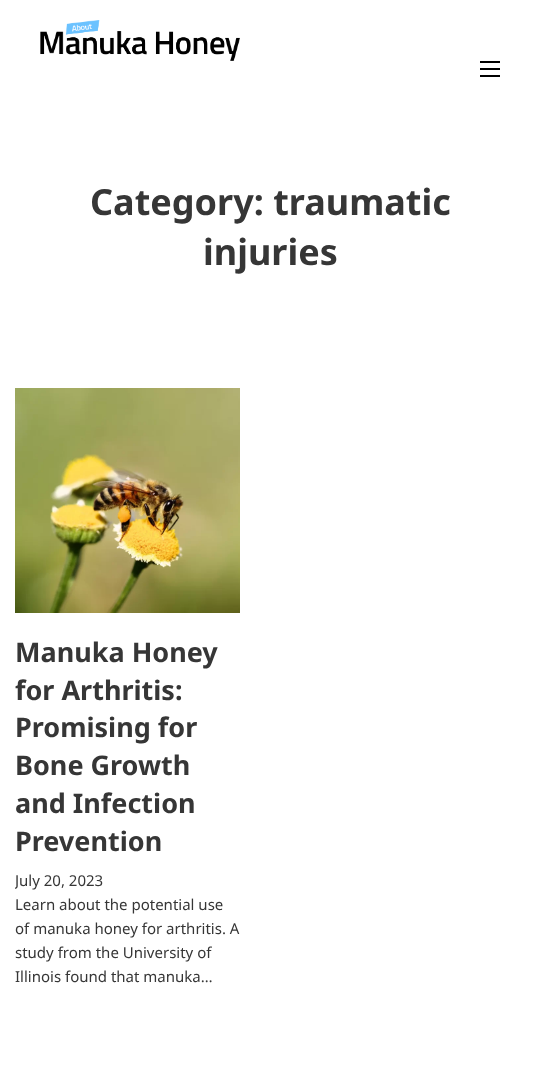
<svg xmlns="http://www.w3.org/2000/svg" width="540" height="1071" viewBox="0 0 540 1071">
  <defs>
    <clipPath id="clip1"><path d="M15 388h225v620H15z"/></clipPath>
  </defs>
  <rect width="100%" height="100%" fill="#fff"/>
  <image x="40" y="20" width="200" height="41" href="img/1.png"/>
  <path d="M480 61h20v2H480z" fill="#000"/>
  <path d="M480 68h20v2H480z" fill="#000"/>
  <path d="M480 75h20v2H480z" fill="#000"/>
  <image x="15" y="388" width="225" height="225" href="img/2.png"/>
  <g font-family="Noto Sans" font-size="36" font-weight="bold" fill="#363636">
    <text x="90" y="215">Category: traumatic</text>
    <text x="203" y="265">injuries</text>
  </g>
  <g font-family="Noto Sans" font-size="27" font-weight="bold" fill="#363636">
    <text x="15" y="662">Manuka Honey</text>
    <text x="15" y="700">for Arthritis:</text>
    <text x="15" y="737">Promising for</text>
    <text x="15" y="775">Bone Growth</text>
    <text x="15" y="813">and Infection</text>
    <text x="15" y="851">Prevention</text>
  </g>
  <g clip-path="url(#clip1)">
    <text x="15" y="886" font-family="Noto Sans" font-size="15" fill="#363636">July 20, 2023</text>
  </g>
  <g font-family="Noto Sans" font-size="15" fill="#363636">
    <text x="15" y="910">Learn about the potential use</text>
    <text x="15" y="934">of manuka honey for arthritis. A</text>
    <text x="15" y="958">study from the University of</text>
    <text x="15" y="982">Illinois found that manuka…</text>
  </g>
</svg>
